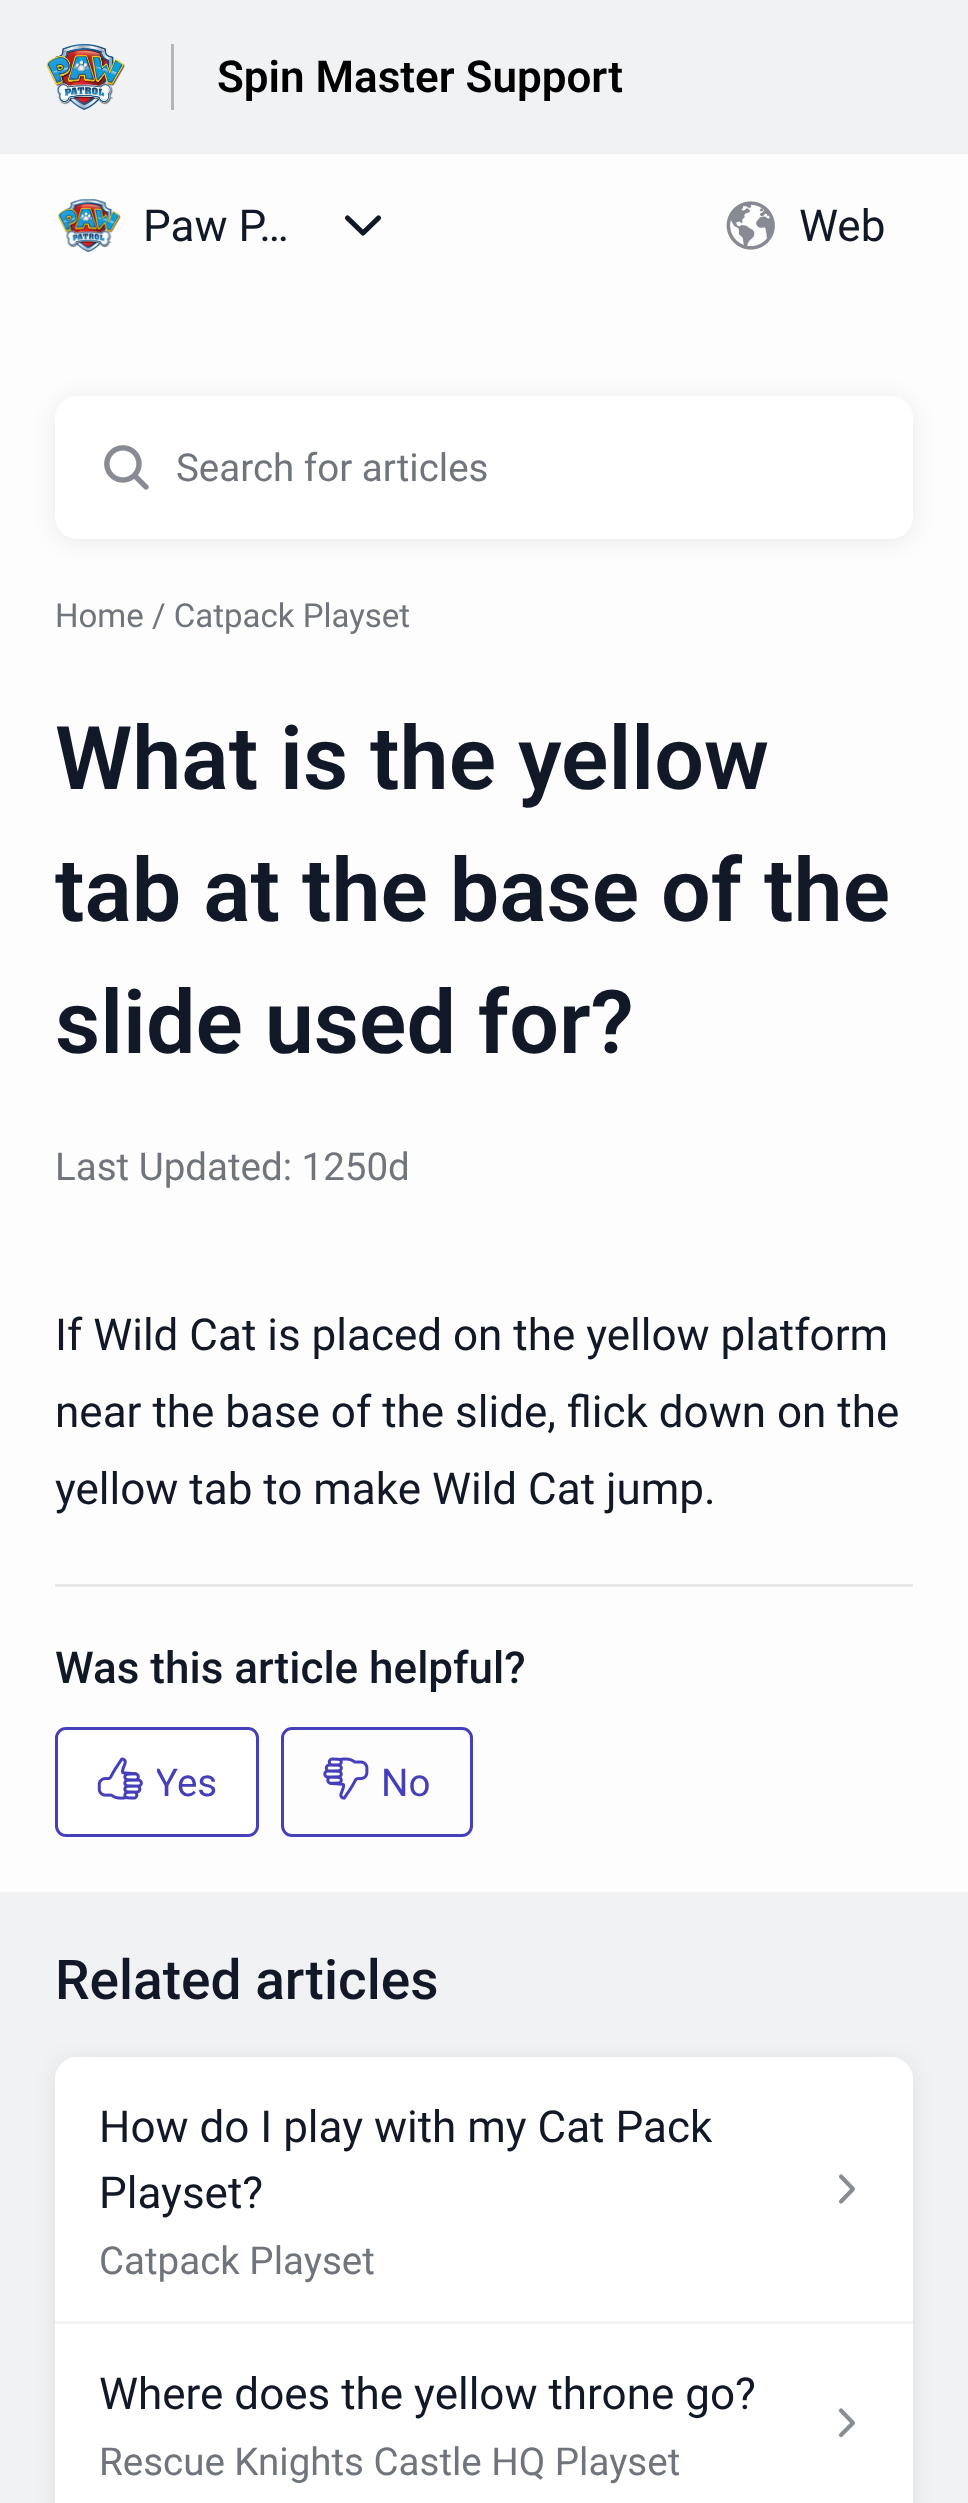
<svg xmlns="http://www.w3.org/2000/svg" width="968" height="2503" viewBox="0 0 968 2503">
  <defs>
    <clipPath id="clip1"><path d="M157 1763h60v38H157z"/></clipPath>
  </defs>
  <rect width="100%" height="100%" fill="#fdfdfd"/>
  <path d="M0 0h968v154H0z" fill="#f0f2f4"/>
  <path d="M171 44h3v66H171z" fill="#b4b6b7"/>
  <image x="46" y="44" width="79" height="66" href="img/1.png"/>
  <image x="57" y="198" width="64" height="55" href="img/2.png"/>
  <path d="M347.5 218L363 233L378.5 218" fill="none" stroke="#111827" stroke-width="5.2" stroke-linecap="round" stroke-linejoin="round"/>
  <image x="726" y="201" width="49" height="49" href="img/3.png"/>
  <path d="M0 1892h968v611H0z" fill="#f0f2f4"/>
  <rect x="55" y="399" width="858" height="143" rx="22" fill="#00000014" filter="blur(11px)"/>
  <rect x="55" y="396" width="858" height="143" rx="22" fill="#fff"/>
  <image x="104" y="445" width="45" height="45" href="img/4.png"/>
  <path d="M55 1584h858v3H55z" fill="#e7e8e9"/>
  <rect x="56.5" y="1728.5" width="201" height="107" rx="9.5" fill="none" stroke="#453fb9" stroke-width="3"/>
  <rect x="58" y="1730" width="198" height="104" rx="11" fill="#fff"/>
  <image x="97" y="1757" width="46" height="43" href="img/5.png"/>
  <rect x="282.5" y="1728.5" width="189" height="107" rx="9.5" fill="none" stroke="#453fb9" stroke-width="3"/>
  <image x="323" y="1757" width="46" height="43" href="img/6.png"/>
  <rect x="55" y="2060" width="858" height="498" rx="22" fill="#00000014" filter="blur(11px)"/>
  <path d="M77 2057H891C903 2057 913 2067 913 2079V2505H55V2079C55 2067 65 2057 77 2057Z" fill="#fff"/>
  <path d="M55 2321h858v3H55z" fill="#f3f3f4"/>
  <path d="M841 2176.5L853 2189L841 2201.5" fill="none" stroke="#888c93" stroke-width="4.1" stroke-linecap="round" stroke-linejoin="round"/>
  <path d="M841 2410.5L853 2423L841 2435" fill="none" stroke="#888c93" stroke-width="4.1" stroke-linecap="round" stroke-linejoin="round"/>
  <text x="217" y="92" font-family="Roboto" font-size="44" font-weight="600" fill="#000">Spin Master Support</text>
  <g font-family="Roboto" font-size="44" fill="#111827">
    <text x="143" y="241">Paw P…</text>
    <text x="799" y="241">Web</text>
  </g>
  <text x="176" y="481" font-family="Roboto" font-size="38.5" fill="#70747d">Search for articles</text>
  <text x="55" y="627" font-family="Roboto" font-size="33" fill="#70747d">Home / Catpack Playset</text>
  <g font-family="Roboto" font-size="88" font-weight="600" fill="#111827">
    <text x="55" y="789">What is the yellow</text>
    <text x="55" y="921">tab at the base of the</text>
    <text x="55" y="1053">slide used for?</text>
  </g>
  <text x="55" y="1180" font-family="Roboto" font-size="38.5" fill="#70747d">Last Updated: 1250d</text>
  <g font-family="Roboto" font-size="44" fill="#111827">
    <text x="55" y="1350">If Wild Cat is placed on the yellow platform</text>
    <text x="55" y="1427">near the base of the slide, flick down on the</text>
    <text x="55" y="1504">yellow tab to make Wild Cat jump.</text>
  </g>
  <text x="55" y="1683" font-family="Roboto" font-size="44" font-weight="500" fill="#111827">Was this article helpful?</text>
  <g clip-path="url(#clip1)">
    <text x="155" y="1796" font-family="Roboto" font-size="38.5" fill="#453fb9">Yes</text>
  </g>
  <text x="381" y="1796" font-family="Roboto" font-size="38.5" fill="#453fb9">No</text>
  <text x="55" y="1999" font-family="Roboto" font-size="55" font-weight="500" fill="#111827">Related articles</text>
  <g font-family="Roboto" font-size="44" fill="#111827">
    <text x="99" y="2142">How do I play with my Cat Pack</text>
    <text x="99" y="2208">Playset?</text>
  </g>
  <text x="99" y="2274" font-family="Roboto" font-size="38.5" fill="#70747d">Catpack Playset</text>
  <text x="99" y="2409" font-family="Roboto" font-size="44" fill="#111827">Where does the yellow throne go?</text>
  <text x="99" y="2475" font-family="Roboto" font-size="38.5" fill="#70747d">Rescue Knights Castle HQ Playset</text>
</svg>
